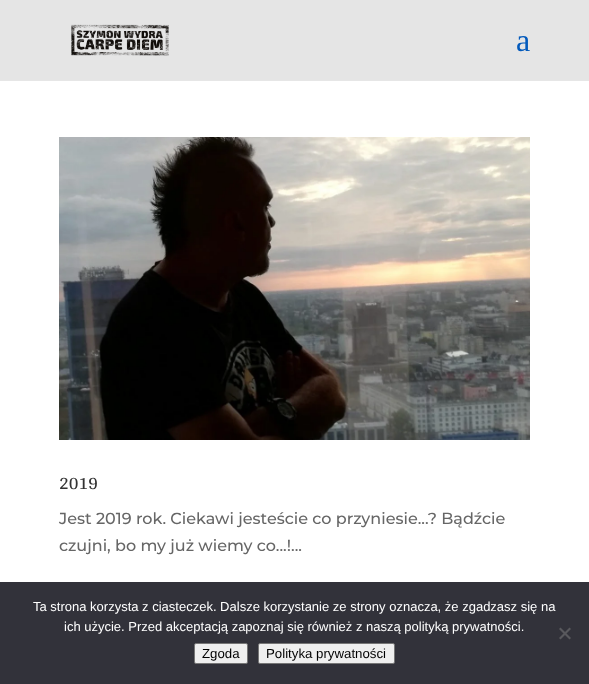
<svg xmlns="http://www.w3.org/2000/svg" width="589" height="684" viewBox="0 0 589 684">
  <rect width="100%" height="100%" fill="#fff"/>
  <path d="M0 80h589v1H0z" fill="#e6e6e6"/>
  <path d="M0 0h589v80H0z" fill="#e5e5e5"/>
  <image x="71" y="24" width="98" height="32" href="img/1.png"/>
  <image x="59" y="137" width="471" height="303" href="img/2.png"/>
  <path d="M0 582h589v102H0z" fill="#32323a"/>
  <path d="M569.5 627.5L571 629L560.5 639.5L559 638Z" fill="#59595d"/>
  <path d="M559 629L560.5 627.5L571 638L569.5 639.5Z" fill="#59595d"/>
  <rect x="194.5" y="643.5" width="53" height="20" rx="1.5" fill="#efefef" stroke="#767676"/>
  <rect x="258.5" y="643.5" width="136" height="20" rx="1.5" fill="#efefef" stroke="#767676"/>
  <text x="516" y="51" font-family="Liberation Serif" font-size="32" fill="#035abc">a</text>
  <text x="59" y="489" font-family="Arya" font-size="18" fill="#333">2019</text>
  <g font-family="Montserrat" font-size="16" font-weight="500" fill="#666">
    <text x="59" y="524">Jest 2019 rok. Ciekawi jesteście co przyniesie...? Bądźcie</text>
    <text x="59" y="551">czujni, bo my już wiemy co...!...</text>
  </g>
  <g font-family="Liberation Sans" font-size="13" fill="#fff">
    <text x="33" y="611">Ta strona korzysta z ciasteczek. Dalsze korzystanie ze strony oznacza, że zgadzasz się na</text>
    <text x="64" y="631">ich użycie. Przed akceptacją zapoznaj się również z naszą polityką prywatności.</text>
  </g>
  <g font-family="Liberation Sans" font-size="13.25" fill="#000">
    <text x="202" y="658">Zgoda</text>
    <text x="266" y="658">Polityka prywatności</text>
  </g>
</svg>
